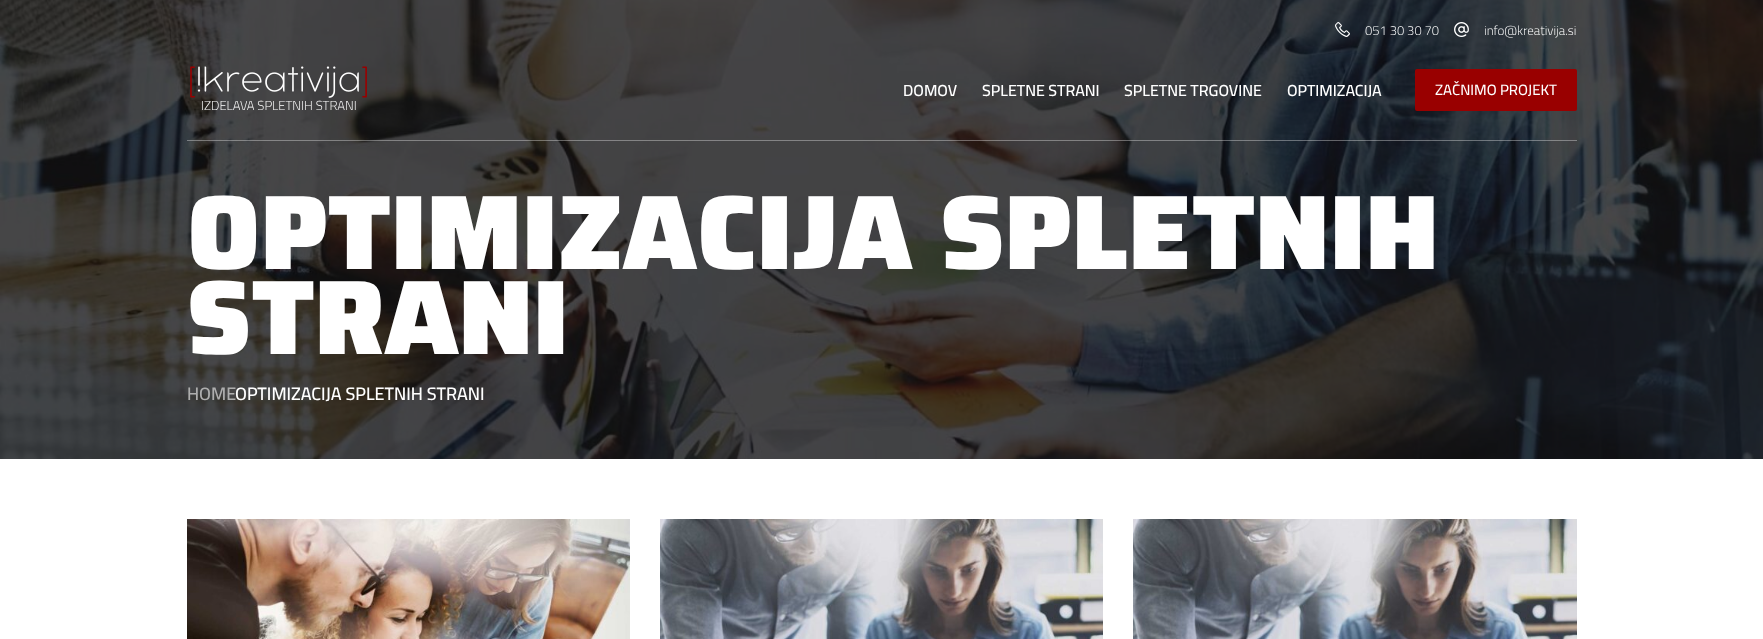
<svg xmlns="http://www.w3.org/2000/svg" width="1763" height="639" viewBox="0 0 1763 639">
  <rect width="100%" height="100%" fill="#fff"/>
  <image x="0" y="0" width="1763" height="459" href="img/4.png"/>
  <image x="1335" y="22" width="15" height="15" href="img/1.png"/>
  <image x="1454" y="22" width="15" height="15" href="img/2.png"/>
  <path d="M187 140h1390v1H187z" fill="#ffffff59"/>
  <rect x="1415" y="69" width="162" height="42" rx="2" fill="#900"/>
  <image x="190" y="66" width="177" height="32" href="img/3.png"/>
  <image x="187" y="519" width="443" height="120" href="img/5.png"/>
  <image x="660" y="519" width="443" height="120" href="img/6.png"/>
  <image x="1133" y="519" width="444" height="120" href="img/7.png"/>
  <g font-family="Cairo" font-size="13" font-weight="300" fill="#fff">
    <text x="1365" y="35">051 30 30 70</text>
    <text x="1484" y="35">info@kreativija.si</text>
  </g>
  <g font-family="Cairo" font-size="16" font-weight="600" fill="#fff">
    <text x="903" y="96">DOMOV</text>
    <text x="982" y="96">SPLETNE STRANI</text>
    <text x="1124" y="96">SPLETNE TRGOVINE</text>
    <text x="1287" y="96">OPTIMIZACIJA</text>
  </g>
  <text x="1435" y="95" font-family="Cairo" font-size="15" font-weight="500" fill="#fff">ZAČNIMO PROJEKT</text>
  <text x="201" y="110" font-family="Cairo" font-size="13" font-weight="300" fill="#fff">IZDELAVA SPLETNIH STRANI</text>
  <g font-family="Saira" font-size="105.75" font-weight="100" fill="#fff">
    <text x="187" y="269">OPTIMIZACIJA SPLETNIH</text>
    <text x="187" y="354">STRANI</text>
  </g>
  <text x="187" y="400" font-family="Cairo" font-size="18" font-weight="600" fill="#aeaeae">HOME</text>
  <text x="235" y="400" font-family="Cairo" font-size="18" font-weight="600" fill="#fff">OPTIMIZACIJA SPLETNIH STRANI</text>
</svg>
